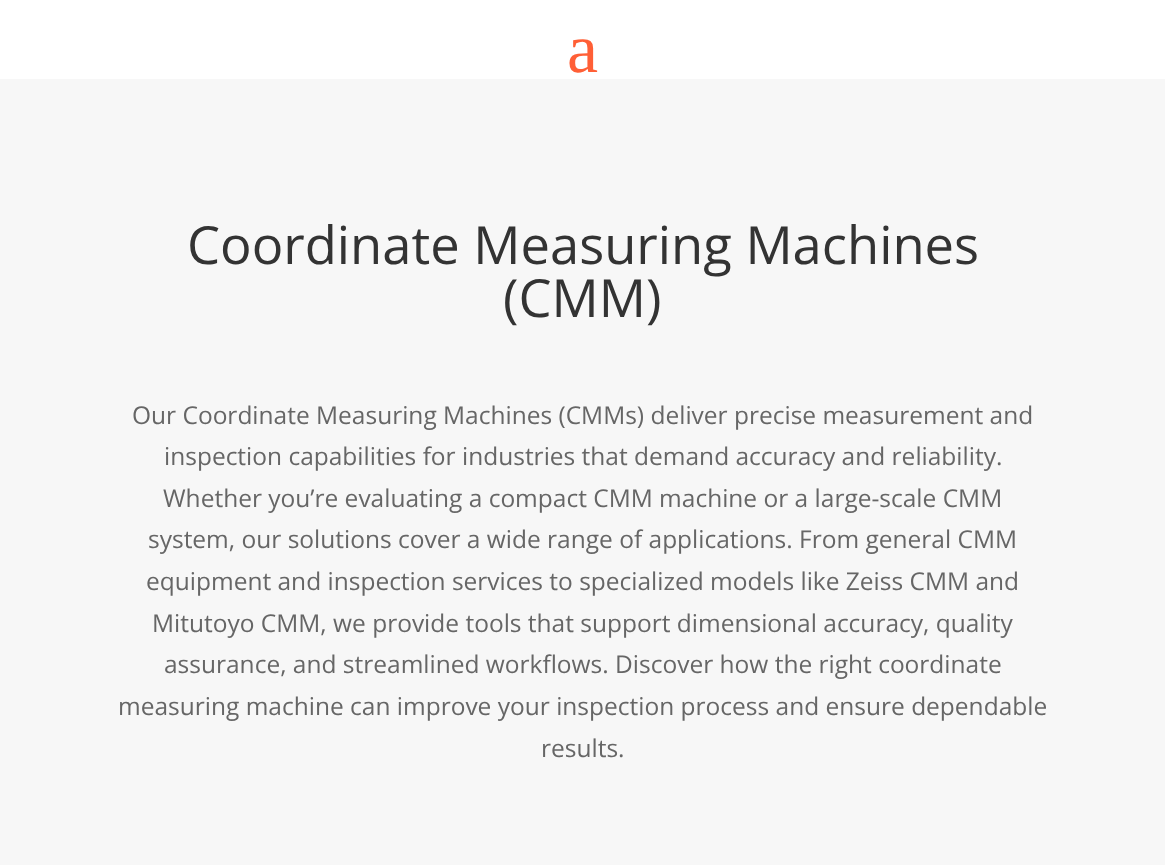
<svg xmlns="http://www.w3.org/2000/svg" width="1165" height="865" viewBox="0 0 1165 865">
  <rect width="100%" height="100%" fill="#fff"/>
  <path d="M0 79h1165v786H0z" fill="#f7f7f7"/>
  <text x="567" y="72" font-family="Liberation Serif" font-size="70" fill="#ff5f36">a</text>
  <g font-family="Open Sans" font-size="52.5" fill="#333">
    <text x="187" y="264">Coordinate Measuring Machines</text>
    <text x="503" y="317">(CMM)</text>
  </g>
  <g font-family="Open Sans" font-size="24.5" fill="#666">
    <text x="132" y="424">Our Coordinate Measuring Machines (CMMs) deliver precise measurement and</text>
    <text x="164" y="465">inspection capabilities for industries that demand accuracy and reliability.</text>
    <text x="163" y="507">Whether you’re evaluating a compact CMM machine or a large-scale CMM</text>
    <text x="148" y="548">system, our solutions cover a wide range of applications. From general CMM</text>
    <text x="146" y="590">equipment and inspection services to specialized models like Zeiss CMM and</text>
    <text x="152" y="632">Mitutoyo CMM, we provide tools that support dimensional accuracy, quality</text>
    <text x="164" y="673">assurance, and streamlined workflows. Discover how the right coordinate</text>
    <text x="118" y="715">measuring machine can improve your inspection process and ensure dependable</text>
    <text x="541" y="757">results.</text>
  </g>
</svg>
